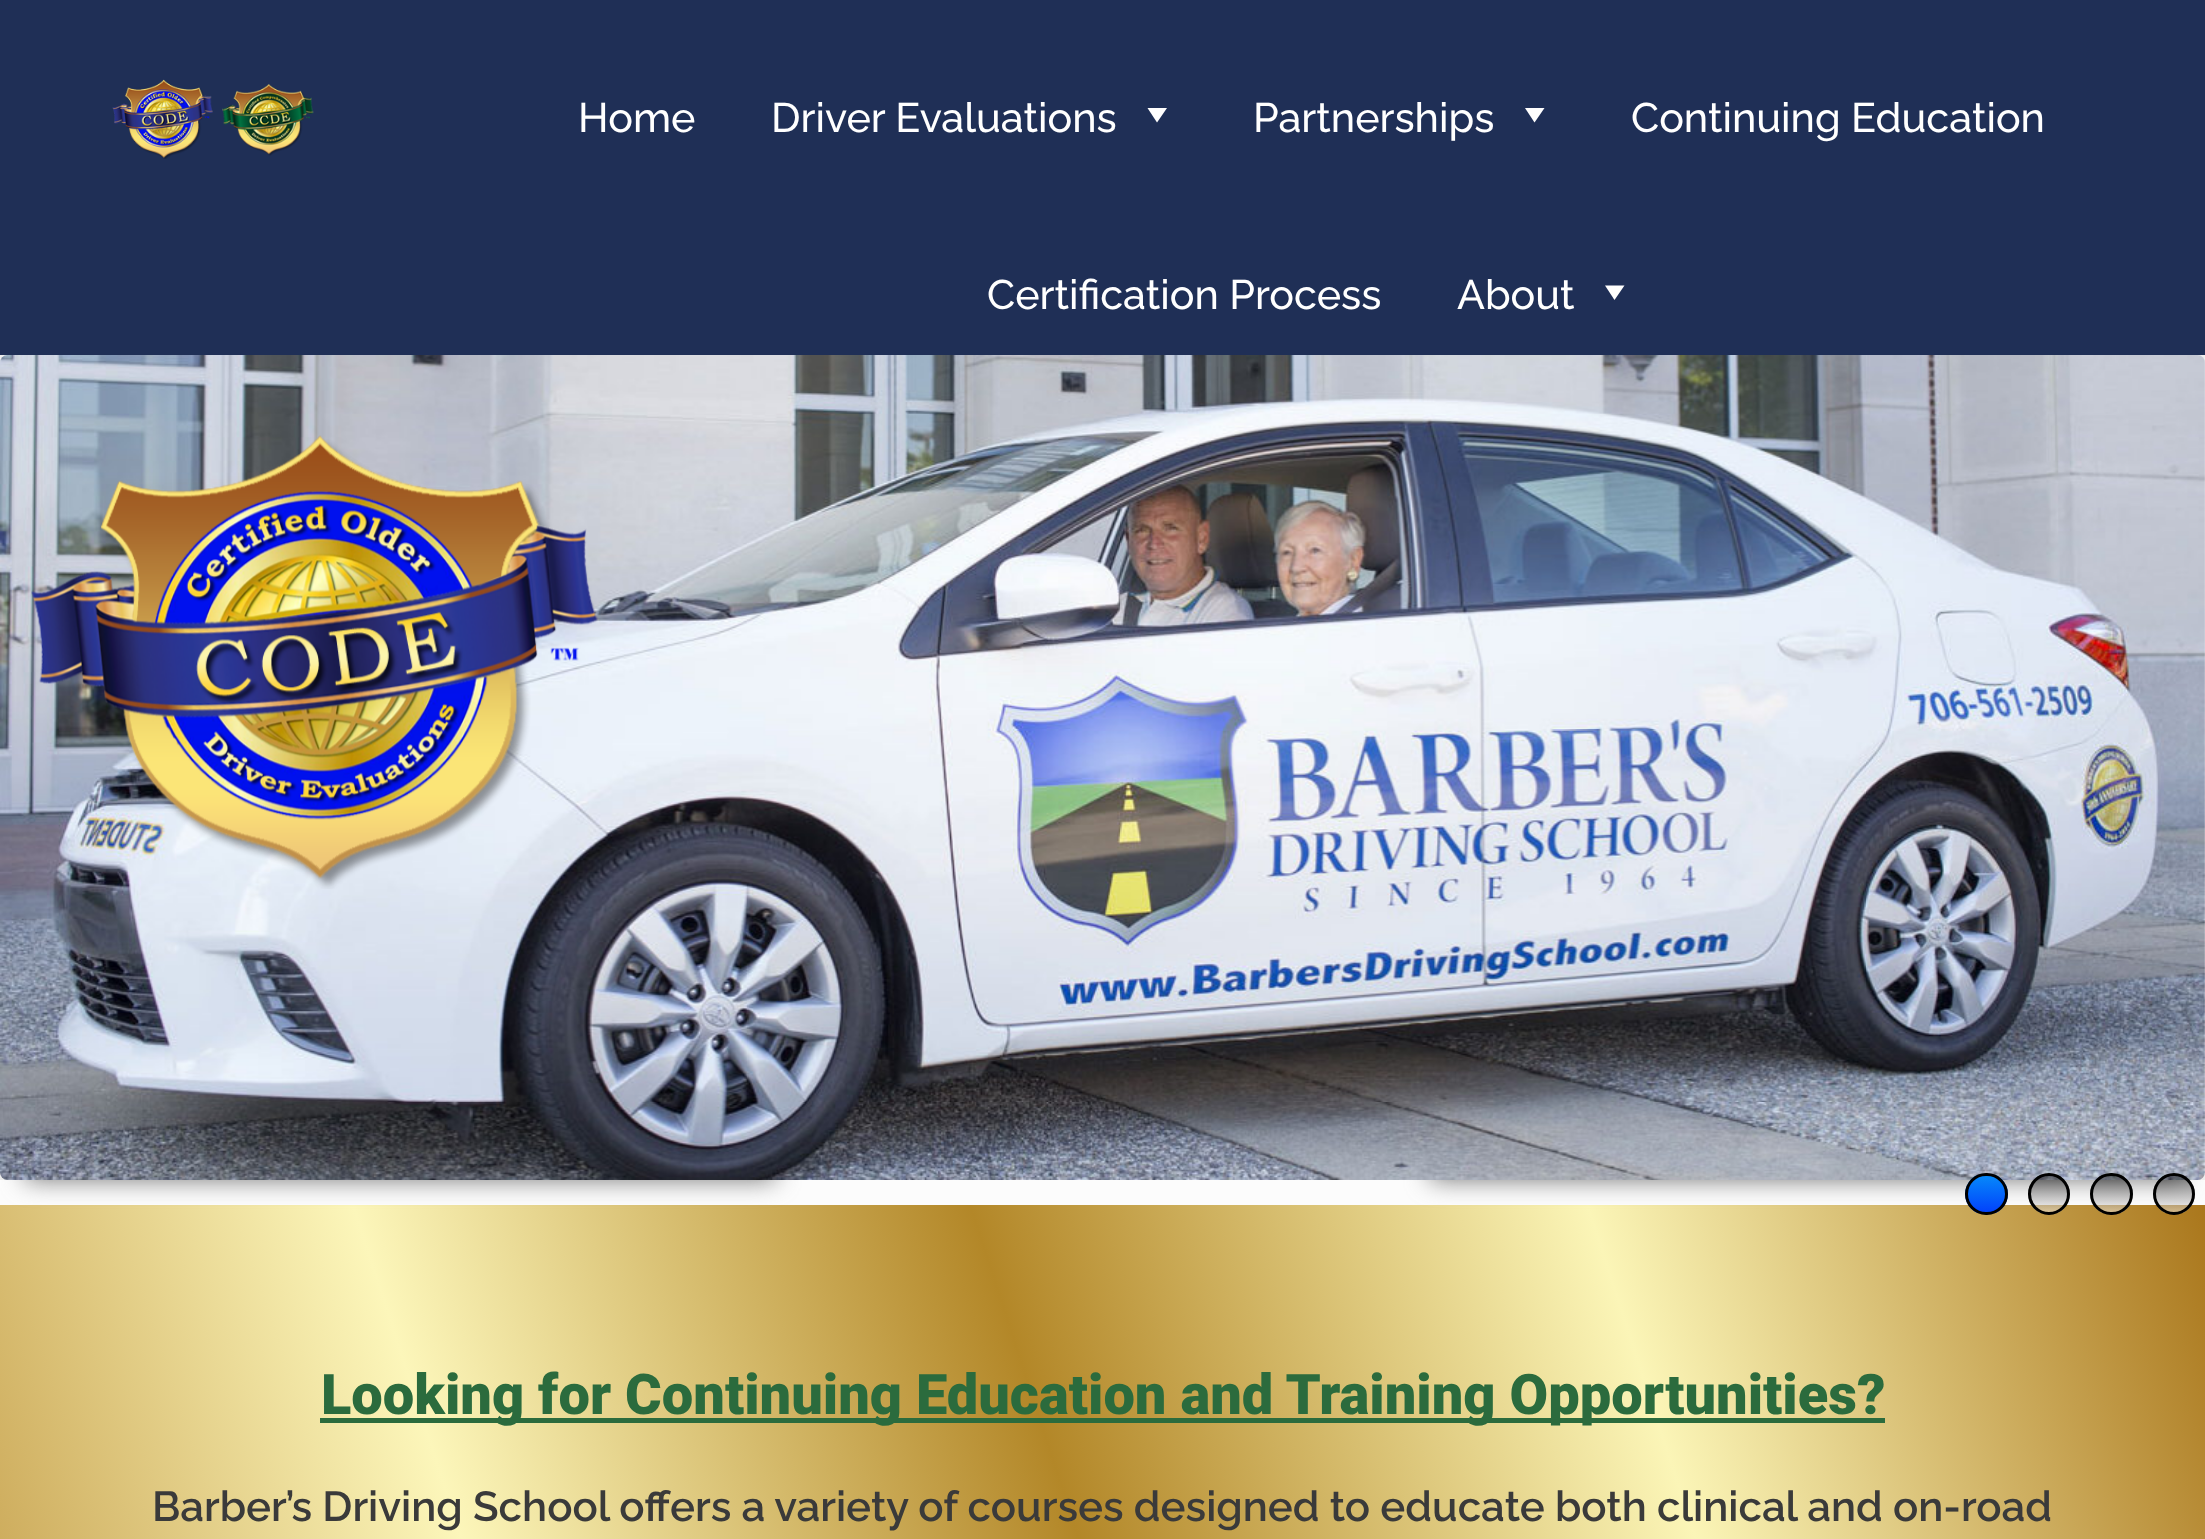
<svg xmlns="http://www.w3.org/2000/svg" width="2205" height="1539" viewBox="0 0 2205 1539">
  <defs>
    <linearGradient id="g1" gradientUnits="userSpaceOnUse" x1="-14" y1="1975" x2="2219" y2="1250"><stop offset="0" stop-color="#bf953f"/><stop offset="0.25" stop-color="#fcf6ba"/><stop offset="0.5" stop-color="#b38728"/><stop offset="0.75" stop-color="#fbf5b7"/><stop offset="1" stop-color="#aa771c"/></linearGradient>
    <clipPath id="clip1"><rect x="1965" y="1173" width="43" height="42" rx="21"/></clipPath>
    <linearGradient id="g2" gradientUnits="userSpaceOnUse" x1="1986" y1="1175" x2="1986" y2="1213"><stop offset="0" stop-color="#068afa"/><stop offset="1" stop-color="#0240fb"/></linearGradient>
    <clipPath id="clip2"><rect x="2028" y="1173" width="42" height="42" rx="21"/></clipPath>
    <linearGradient id="g3" gradientUnits="userSpaceOnUse" x1="2049" y1="1175" x2="2049" y2="1213"><stop offset="0" stop-color="#000" stop-opacity="0.5"/><stop offset="1" stop-color="#fbf8f8" stop-opacity="0.5"/></linearGradient>
    <clipPath id="clip3"><rect x="2090" y="1173" width="43" height="42" rx="21"/></clipPath>
    <linearGradient id="g4" gradientUnits="userSpaceOnUse" x1="2111" y1="1175" x2="2111" y2="1213"><stop offset="0" stop-color="#000" stop-opacity="0.5"/><stop offset="1" stop-color="#fbf8f8" stop-opacity="0.5"/></linearGradient>
    <clipPath id="clip4"><rect x="2153" y="1173" width="42" height="42" rx="21"/></clipPath>
    <linearGradient id="g5" gradientUnits="userSpaceOnUse" x1="2174" y1="1175" x2="2174" y2="1213"><stop offset="0" stop-color="#000" stop-opacity="0.5"/><stop offset="1" stop-color="#fbf8f8" stop-opacity="0.5"/></linearGradient>
  </defs>
  <rect width="100%" height="100%" fill="#eee"/>
  <path d="M0 0h2205v355H0z" fill="#1f2f56"/>
  <image x="112" y="79" width="202" height="80" href="img/1.png"/>
  <path d="M1167 108L1157 122.5L1147.5 108Z" fill="#fff"/>
  <path d="M1544.5 108L1534.5 122.5L1525 108Z" fill="#fff"/>
  <path d="M1624.5 285.5L1614.5 300L1605 285.5Z" fill="#fff"/>
  <path d="M0 1180h2205v25H0z" fill="#fcfcfc"/>
  <path d="M0 1205h2205v334H0z" fill="url(#g1)"/>
  <path d="M25 1053h750v127H25z" fill="#777" filter="blur(12.5px)"/>
  <path d="M1430 1053h750v127H1430z" fill="#777" filter="blur(12.5px)"/>
  <image x="0" y="355" width="2205" height="825" href="img/2.png"/>
  <image x="31" y="435" width="567" height="454" href="img/3.png"/>
  <g clip-path="url(#clip1)">
    <path d="M1965 1175h43v38H1965z" fill="url(#g2)"/>
  </g>
  <rect x="1966.5" y="1174.5" width="40" height="39" rx="19.5" fill="none" stroke="#000" stroke-width="3"/>
  <g clip-path="url(#clip2)">
    <path d="M2028 1175h42v38H2028z" fill="url(#g3)"/>
  </g>
  <circle cx="2049" cy="1194" r="19.5" fill="none" stroke="#000" stroke-width="3"/>
  <g clip-path="url(#clip3)">
    <path d="M2090 1175h43v38H2090z" fill="url(#g4)"/>
  </g>
  <rect x="2091.5" y="1174.5" width="40" height="39" rx="19.5" fill="none" stroke="#000" stroke-width="3"/>
  <g clip-path="url(#clip4)">
    <path d="M2153 1175h42v38H2153z" fill="url(#g5)"/>
  </g>
  <circle cx="2174" cy="1194" r="19.5" fill="none" stroke="#000" stroke-width="3"/>
  <path d="M320 1418h1565v5H320z" fill="#2b6b3d"/>
  <g font-family="Raleway" font-size="41.25" font-weight="500" fill="#fff">
    <text x="578" y="132">Home</text>
    <text x="771" y="132">Driver Evaluations</text>
    <text x="1253" y="132">Partnerships</text>
    <text x="1631" y="132">Continuing Education</text>
    <text x="987" y="309">Certification Process</text>
    <text x="1457" y="309">About</text>
  </g>
  <text x="321" y="1414" font-family="Roboto" font-size="56" font-weight="900" fill="#2b6b3d">Looking for Continuing Education and Training Opportunities?</text>
  <text x="152" y="1521" word-spacing="-0.2" font-family="Raleway" font-size="42" font-weight="600" fill="#3a3a3a">Barber’s Driving School offers a variety of courses designed to educate both clinical and on-road</text>
</svg>
